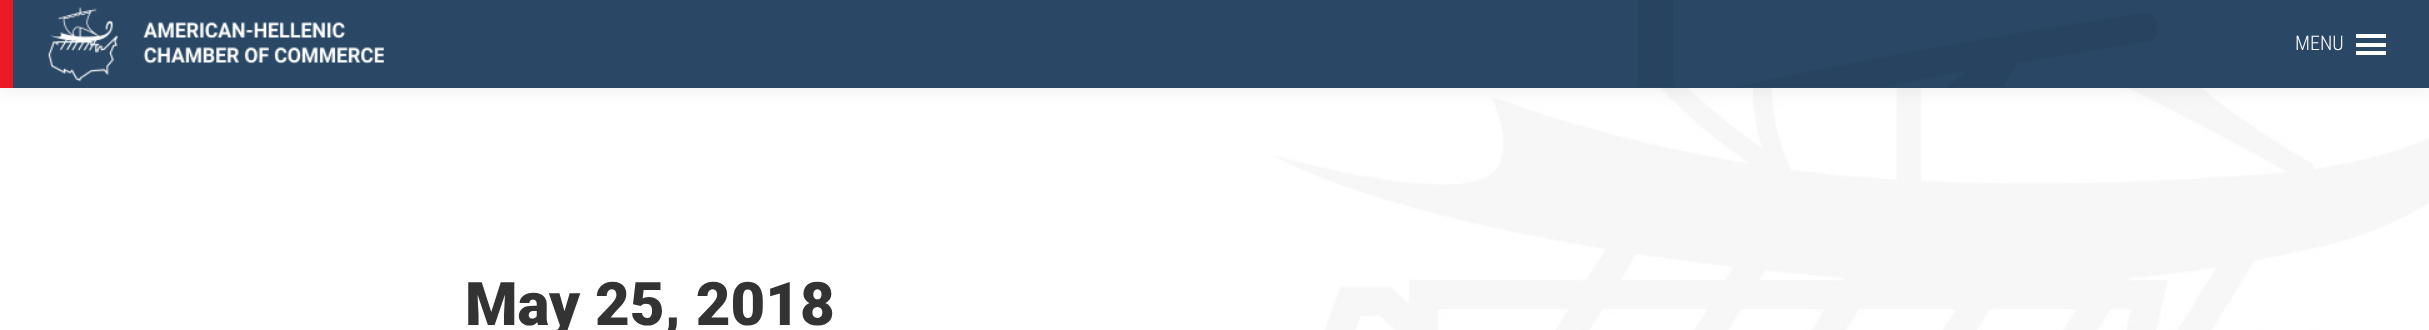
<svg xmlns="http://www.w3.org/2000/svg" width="2429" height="330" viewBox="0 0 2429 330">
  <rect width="100%" height="100%" fill="#fff"/>
  <image x="0" y="88" width="2429" height="242" href="img/1.png"/>
  <path d="M-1 -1h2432v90H-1z" fill="#00000012" filter="blur(9.5px)"/>
  <path d="M13 0h2416v88H13z" fill="#2a4765"/>
  <image x="1638" y="0" width="520" height="87" href="img/2.png"/>
  <path d="M0 0h13v88H0z" fill="#ec1b23"/>
  <image x="47" y="7" width="337" height="75" href="img/3.png"/>
  <path d="M2356 34h30v4H2356z" fill="#fff"/>
  <path d="M2356 43h30v4H2356z" fill="#fff"/>
  <path d="M2356 51h30v4H2356z" fill="#fff"/>
  <text x="2295" y="50" font-family="Roboto Condensed" font-size="20" font-weight="300" fill="#fff">MENU</text>
  <text x="465" y="325" font-family="Roboto" font-size="60" font-weight="900" fill="#333">May 25, 2018</text>
</svg>
